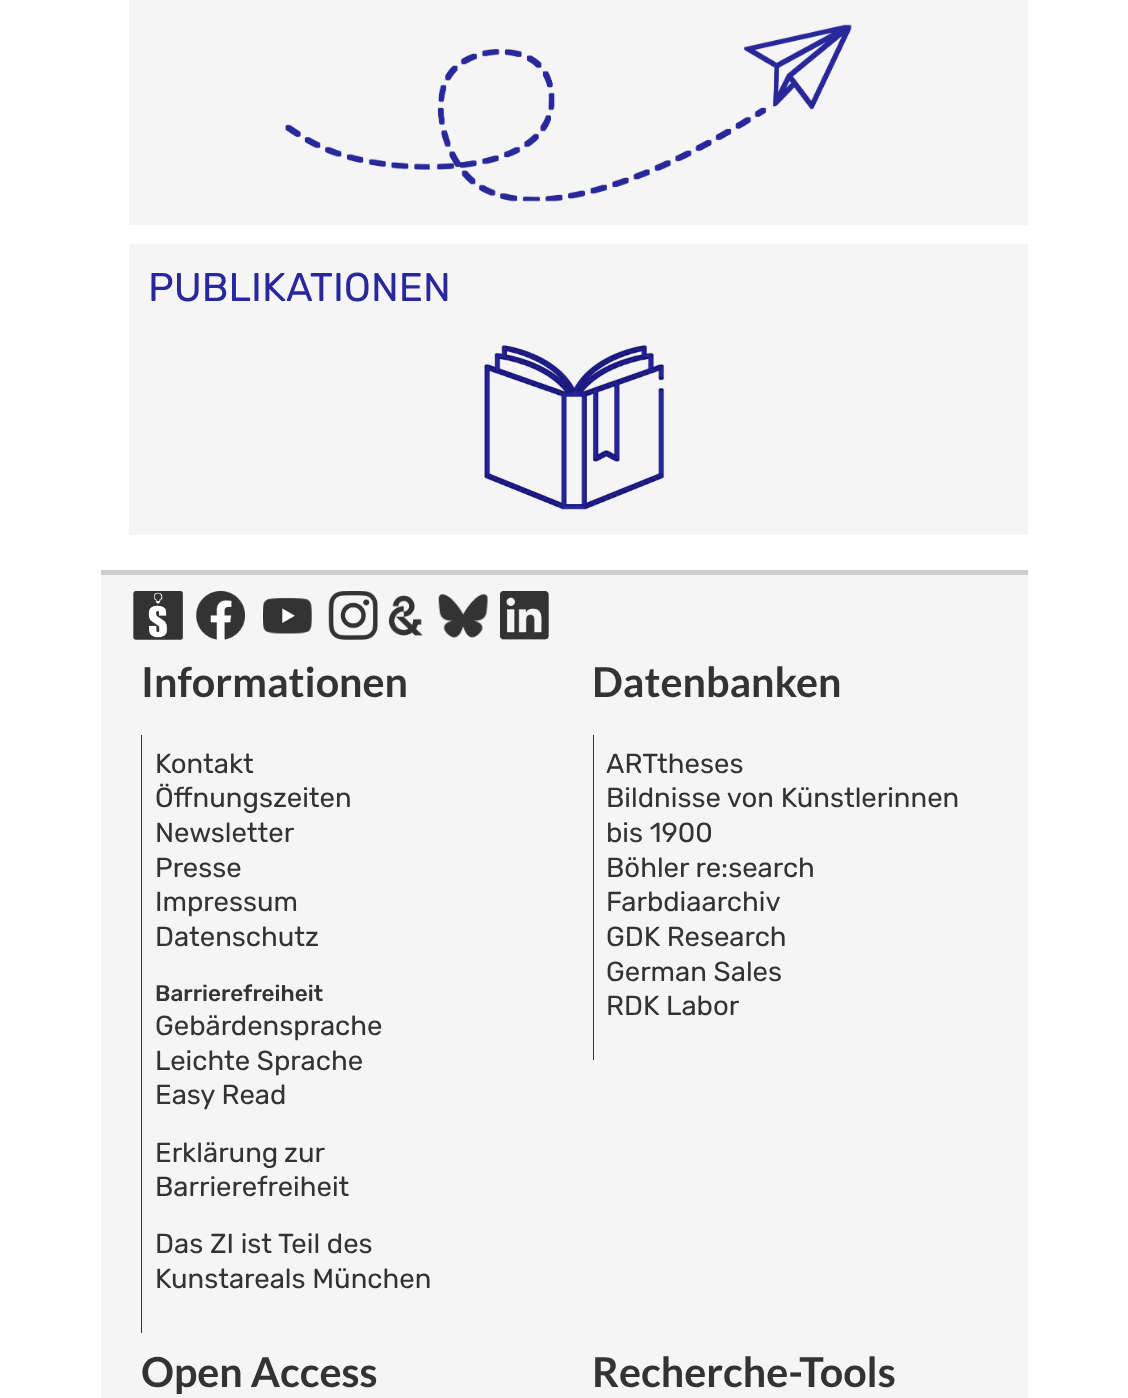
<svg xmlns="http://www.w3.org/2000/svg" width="1128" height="1398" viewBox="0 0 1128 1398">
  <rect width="100%" height="100%" fill="#fff"/>
  <path d="M129 0h899v225H129z" fill="#f5f5f5"/>
  <image x="285" y="24" width="567" height="178" href="img/1.png"/>
  <path d="M129 244h899v291H129z" fill="#f5f5f5"/>
  <image x="484" y="344" width="181" height="166" href="img/2.png"/>
  <path d="M101 575h927v823H101z" fill="#f5f5f5"/>
  <path d="M101 570h927v5H101z" fill="#ccc"/>
  <image x="133" y="591" width="50" height="49" href="img/3.png"/>
  <image x="196" y="591" width="49" height="49" href="img/4.png"/>
  <image x="263" y="598" width="49" height="36" href="img/5.png"/>
  <image x="328" y="591" width="50" height="49" href="img/6.png"/>
  <image x="388" y="595" width="35" height="41" href="img/7.png"/>
  <image x="438" y="593" width="50" height="45" href="img/8.png"/>
  <image x="500" y="591" width="49" height="49" href="img/9.png"/>
  <path d="M141 735h1v598H141z" fill="#333"/>
  <path d="M593 735h1v325H593z" fill="#333"/>
  <text x="148" y="301" font-family="Rubik" font-size="40" fill="#28289a">PUBLIKATIONEN</text>
  <text x="141" y="697" font-family="Lato" font-size="41.25" font-weight="bold" fill="#333">Informationen</text>
  <g font-family="Rubik" font-size="27.5" fill="#333">
    <text x="155" y="773">Kontakt</text>
    <text x="155" y="807">Öffnungszeiten</text>
    <text x="155" y="842">Newsletter</text>
    <text x="155" y="877">Presse</text>
    <text x="155" y="911">Impressum</text>
    <text x="155" y="946">Datenschutz</text>
  </g>
  <text x="155" y="1001" font-family="Rubik" font-size="22.5" font-weight="500" fill="#333">Barrierefreiheit</text>
  <g font-family="Rubik" font-size="27.5" fill="#333">
    <text x="155" y="1035">Gebärdensprache</text>
    <text x="155" y="1070">Leichte Sprache</text>
    <text x="155" y="1104">Easy Read</text>
    <text x="155" y="1162" word-spacing="-1">Erklärung zur</text>
    <text x="155" y="1196">Barrierefreiheit</text>
    <text x="155" y="1253">Das ZI ist Teil des</text>
    <text x="155" y="1288">Kunstareals München</text>
  </g>
  <text x="592" y="697" font-family="Lato" font-size="41.25" font-weight="bold" fill="#333">Datenbanken</text>
  <g font-family="Rubik" font-size="27.5" fill="#333">
    <text x="606" y="773">ARTtheses</text>
    <text x="606" y="807">Bildnisse von Künstlerinnen</text>
    <text x="606" y="842">bis 1900</text>
    <text x="606" y="877">Böhler re:search</text>
    <text x="606" y="911">Farbdiaarchiv</text>
    <text x="606" y="946">GDK Research</text>
    <text x="606" y="981">German Sales</text>
    <text x="606" y="1015">RDK Labor</text>
  </g>
  <g font-family="Lato" font-size="41.25" font-weight="bold" fill="#333">
    <text x="141" y="1387">Open Access</text>
    <text x="592" y="1387">Recherche-Tools</text>
  </g>
</svg>
